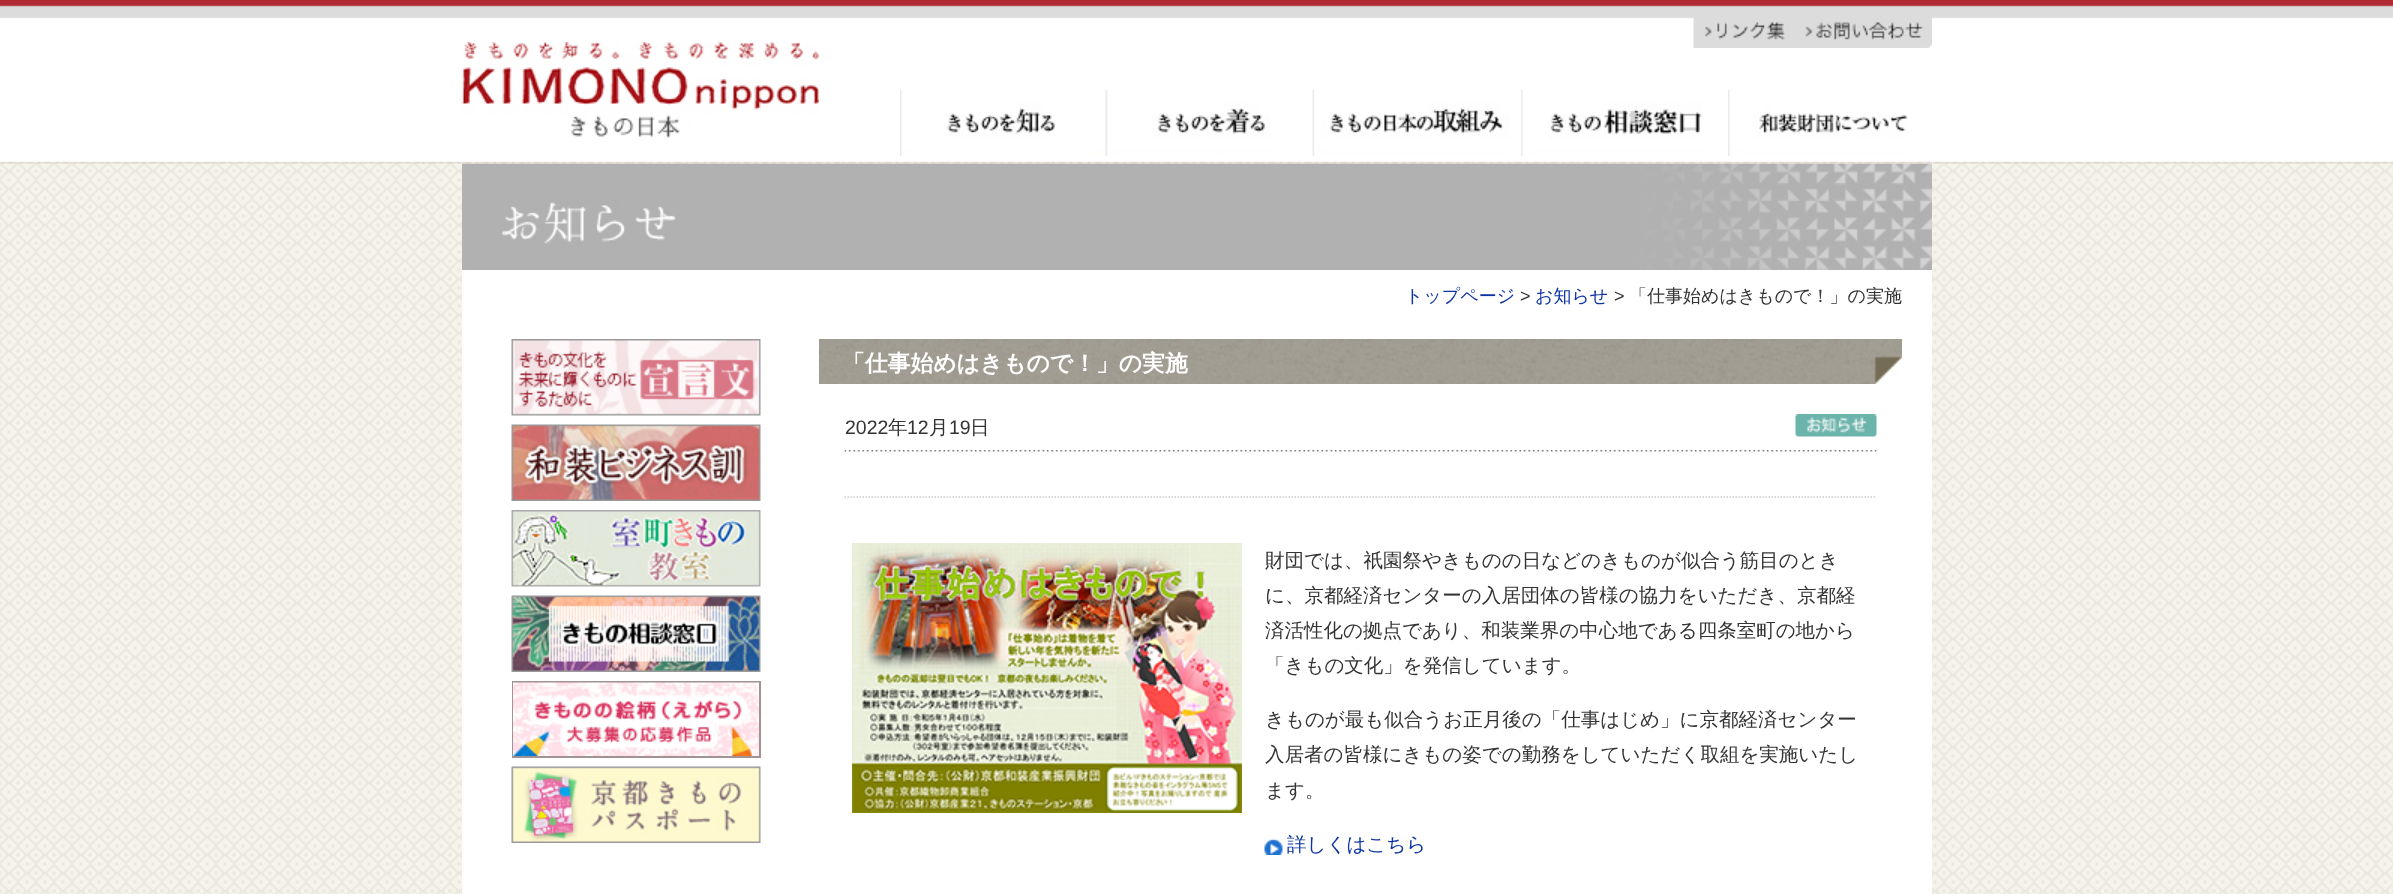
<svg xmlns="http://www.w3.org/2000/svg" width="2393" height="894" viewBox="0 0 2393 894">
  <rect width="100%" height="100%" fill="#fff"/>
  <image x="0" y="163" width="2393" height="731" href="img/1.png"/>
  <image x="462" y="163" width="1470" height="107" href="img/11.png"/>
  <image x="0" y="0" width="2393" height="164" href="img/2.png"/>
  <image x="462" y="42" width="357" height="96" href="img/3.png"/>
  <image x="1693" y="17" width="107" height="31" href="img/4.png"/>
  <image x="1800" y="17" width="132" height="31" href="img/5.png"/>
  <image x="900" y="90" width="203" height="66" href="img/6.png"/>
  <image x="1105" y="90" width="165" height="66" href="img/7.png"/>
  <image x="1312" y="90" width="198" height="66" href="img/8.png"/>
  <image x="1521" y="90" width="181" height="66" href="img/9.png"/>
  <image x="1728" y="90" width="180" height="66" href="img/10.png"/>
  <path d="M462 270h1470v624H462z" fill="#fff"/>
  <image x="511" y="339" width="250" height="77" href="img/12.png"/>
  <image x="511" y="424" width="250" height="77" href="img/13.png"/>
  <image x="511" y="510" width="250" height="77" href="img/14.png"/>
  <image x="511" y="595" width="250" height="77" href="img/15.png"/>
  <path d="M513 682h247v75H513z" fill="none" stroke="#9f9393" stroke-width="2"/>
  <image x="513" y="682" width="246" height="74" href="img/16.png"/>
  <image x="511" y="766" width="250" height="77" href="img/17.png"/>
  <image x="819" y="339" width="1083" height="45" href="img/18.png"/>
  <image x="844" y="450" width="1033" height="2" href="img/19.png"/>
  <image x="1795" y="414" width="82" height="23" href="img/20.png"/>
  <path d="M844.5 497H1876.5" fill="none" stroke="#ccc" stroke-width="1.5" stroke-dasharray="1.5 1.5"/>
  <image x="852" y="543" width="390" height="270" href="img/21.png"/>
  <image x="1264" y="838" width="19" height="17" href="img/22.png"/>
  <text x="1405" y="302" font-family="WenQuanYi Zen Hei" font-size="18" font-weight="500" fill="#0d34a2">トップページ</text>
  <text x="1520" y="302" font-family="Liberation Sans" font-size="18" fill="#333">&gt;</text>
  <text x="1535" y="302" font-family="WenQuanYi Zen Hei" font-size="18" font-weight="500" fill="#0d34a2">お知らせ</text>
  <text x="1614" y="302" font-family="Liberation Sans" font-size="18" fill="#333">&gt;</text>
  <text x="1629" y="302" font-family="WenQuanYi Zen Hei" font-size="18" font-weight="500" fill="#333">「仕事始めはきもので！」の実施</text>
  <text x="842" y="371" font-family="WenQuanYi Zen Hei" font-size="22.8" font-weight="bold" fill="#fff">「仕事始めはきもので！」の実施</text>
  <text x="845" y="434" font-family="Liberation Sans" font-size="19.5" fill="#333">2022</text>
  <text x="888" y="434" font-family="WenQuanYi Zen Hei" font-size="19.5" font-weight="500" fill="#333">年</text>
  <text x="907" y="434" font-family="Liberation Sans" font-size="19.5" fill="#333">12</text>
  <text x="929" y="434" font-family="WenQuanYi Zen Hei" font-size="19.5" font-weight="500" fill="#333">月</text>
  <text x="949" y="434" font-family="Liberation Sans" font-size="19.5" fill="#333">19</text>
  <g font-family="WenQuanYi Zen Hei" font-size="19.5" font-weight="500" fill="#333">
    <text x="970" y="434">日</text>
    <text x="1265" y="567">財団では、祇園祭やきものの日などのきものが似合う筋目のとき</text>
    <text x="1265" y="602">に、京都経済センターの入居団体の皆様の協力をいただき、京都経</text>
    <text x="1265" y="637">済活性化の拠点であり、和装業界の中心地である四条室町の地から</text>
    <text x="1265" y="672">「きもの文化」を発信しています。</text>
    <text x="1265" y="726">きものが最も似合うお正月後の「仕事はじめ」に京都経済センター</text>
    <text x="1265" y="761">入居者の皆様にきもの姿での勤務をしていただく取組を実施いたし</text>
    <text x="1265" y="797">ます。</text>
  </g>
  <text x="1287" y="851" font-family="WenQuanYi Zen Hei" font-size="19.5" font-weight="500" fill="#0d34a2">詳しくはこちら</text>
</svg>
